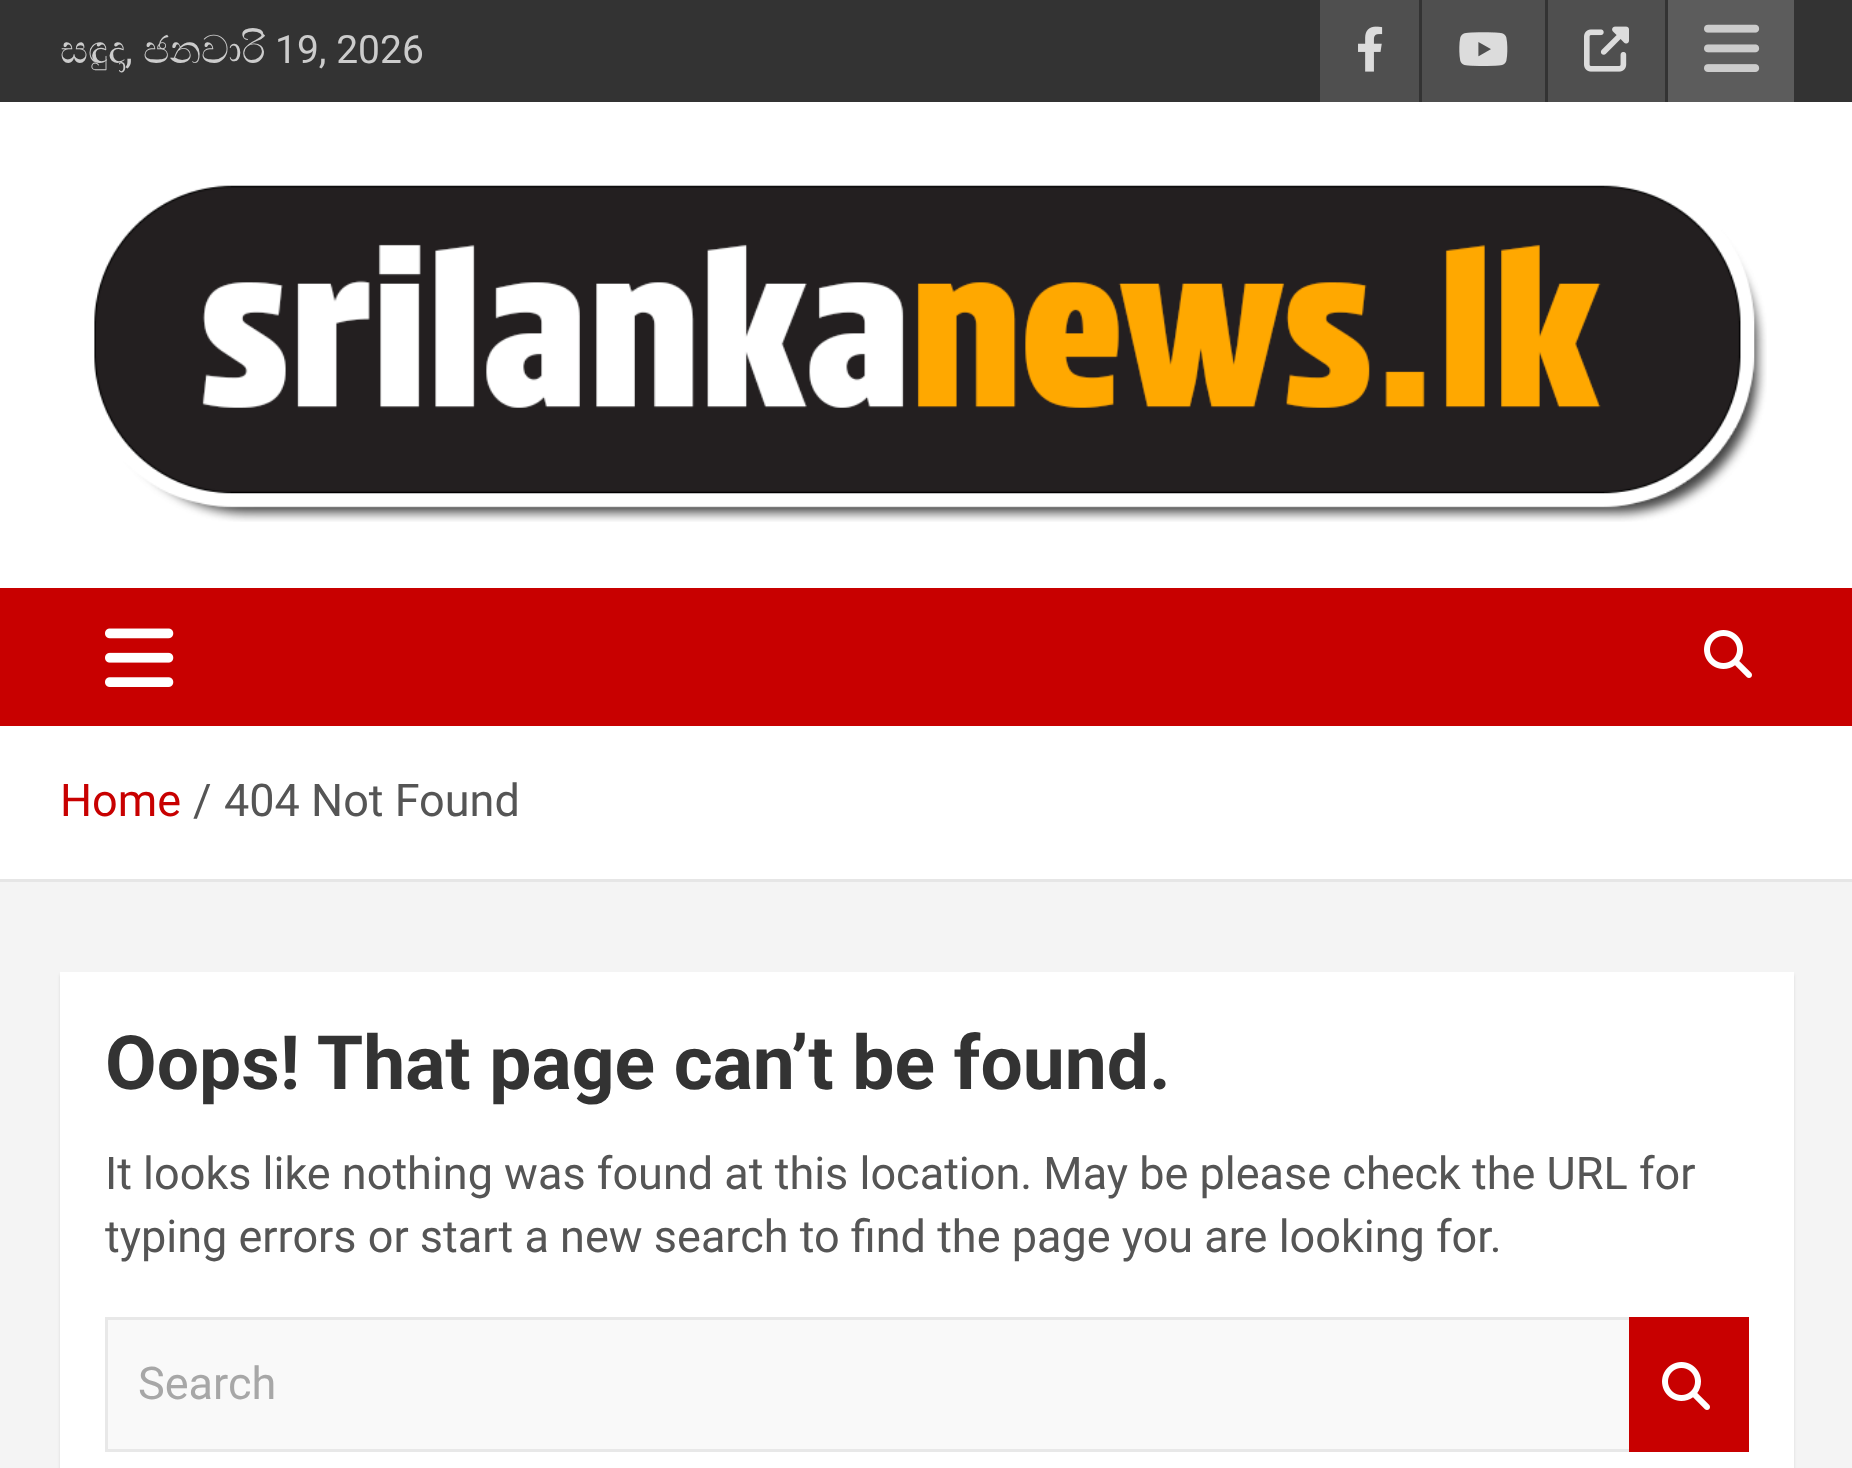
<svg xmlns="http://www.w3.org/2000/svg" width="1852" height="1468" viewBox="0 0 1852 1468">
  <rect width="100%" height="100%" fill="#f4f4f4"/>
  <path d="M0 0h1852v102H0z" fill="#333"/>
  <path d="M1320 0h99v102H1320z" fill="#4f4f4f"/>
  <image x="1358" y="26" width="25" height="46" href="img/1.png"/>
  <path d="M1422 0h123v102H1422z" fill="#4f4f4f"/>
  <image x="1459" y="32" width="49" height="34" href="img/2.png"/>
  <path d="M1548 0h117v102H1548z" fill="#4f4f4f"/>
  <image x="1584" y="26" width="45" height="46" href="img/3.png"/>
  <path d="M1668 0h126v102H1668z" fill="#5c5c5c"/>
  <image x="1704" y="24" width="56" height="48" href="img/4.png"/>
  <path d="M0 102h1852v486H0z" fill="#fff"/>
  <image x="94" y="185" width="1673" height="337" href="img/5.png"/>
  <path d="M0 588h1852v138H0z" fill="#c80000"/>
  <image x="105" y="628" width="69" height="59" href="img/6.png"/>
  <image x="1704" y="630" width="48" height="48" href="img/7.png"/>
  <path d="M0 726h1852v153H0z" fill="#fff"/>
  <path d="M0 879h1852v3H0z" fill="#e6e6e6"/>
  <path d="M60 975h1734v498H60z" fill="#0000001a" filter="blur(1.5px)"/>
  <path d="M60 972h1734v496H60z" fill="#fff"/>
  <path d="M108 1320h1521v129H108z" fill="#f9f9f9"/>
  <path d="M105 1317H1629V1320H108Z" fill="#e8e8e8"/>
  <path d="M1629 1452H105L108 1449H1629Z" fill="#e8e8e8"/>
  <path d="M105 1452V1317L108 1320V1449Z" fill="#00000017"/>
  <path d="M1629 1317h120v135H1629z" fill="#c80000"/>
  <image x="1662" y="1362" width="48" height="48" href="img/7.png"/>
  <text x="60" y="63" font-family="FreeSerif" font-size="39" fill="#ccc">සඳුදා</text>
  <text x="125" y="63" font-family="Roboto" font-size="39" fill="#ccc">,</text>
  <text x="143" y="63" font-family="FreeSerif" font-size="39" fill="#ccc">ජනවාරි</text>
  <text x="275" y="63" font-family="Roboto" font-size="39" fill="#ccc">19, 2026</text>
  <text x="60" y="816" font-family="Roboto" font-size="45" fill="#c80000">Home</text>
  <g font-family="Roboto" font-size="45" fill="#555">
    <text x="193" y="816">/</text>
    <text x="224" y="816">404 Not Found</text>
  </g>
  <text x="105" y="1089" font-family="Roboto" font-size="75" font-weight="bold" fill="#333">Oops! That page can’t be found.</text>
  <g font-family="Roboto" font-size="45" fill="#555">
    <text x="105" y="1189">It looks like nothing was found at this location. May be please check the URL for</text>
    <text x="105" y="1252">typing errors or start a new search to find the page you are looking for.</text>
  </g>
  <text x="138" y="1399" font-family="Roboto" font-size="45" fill="#a7a7a7">Search</text>
</svg>
